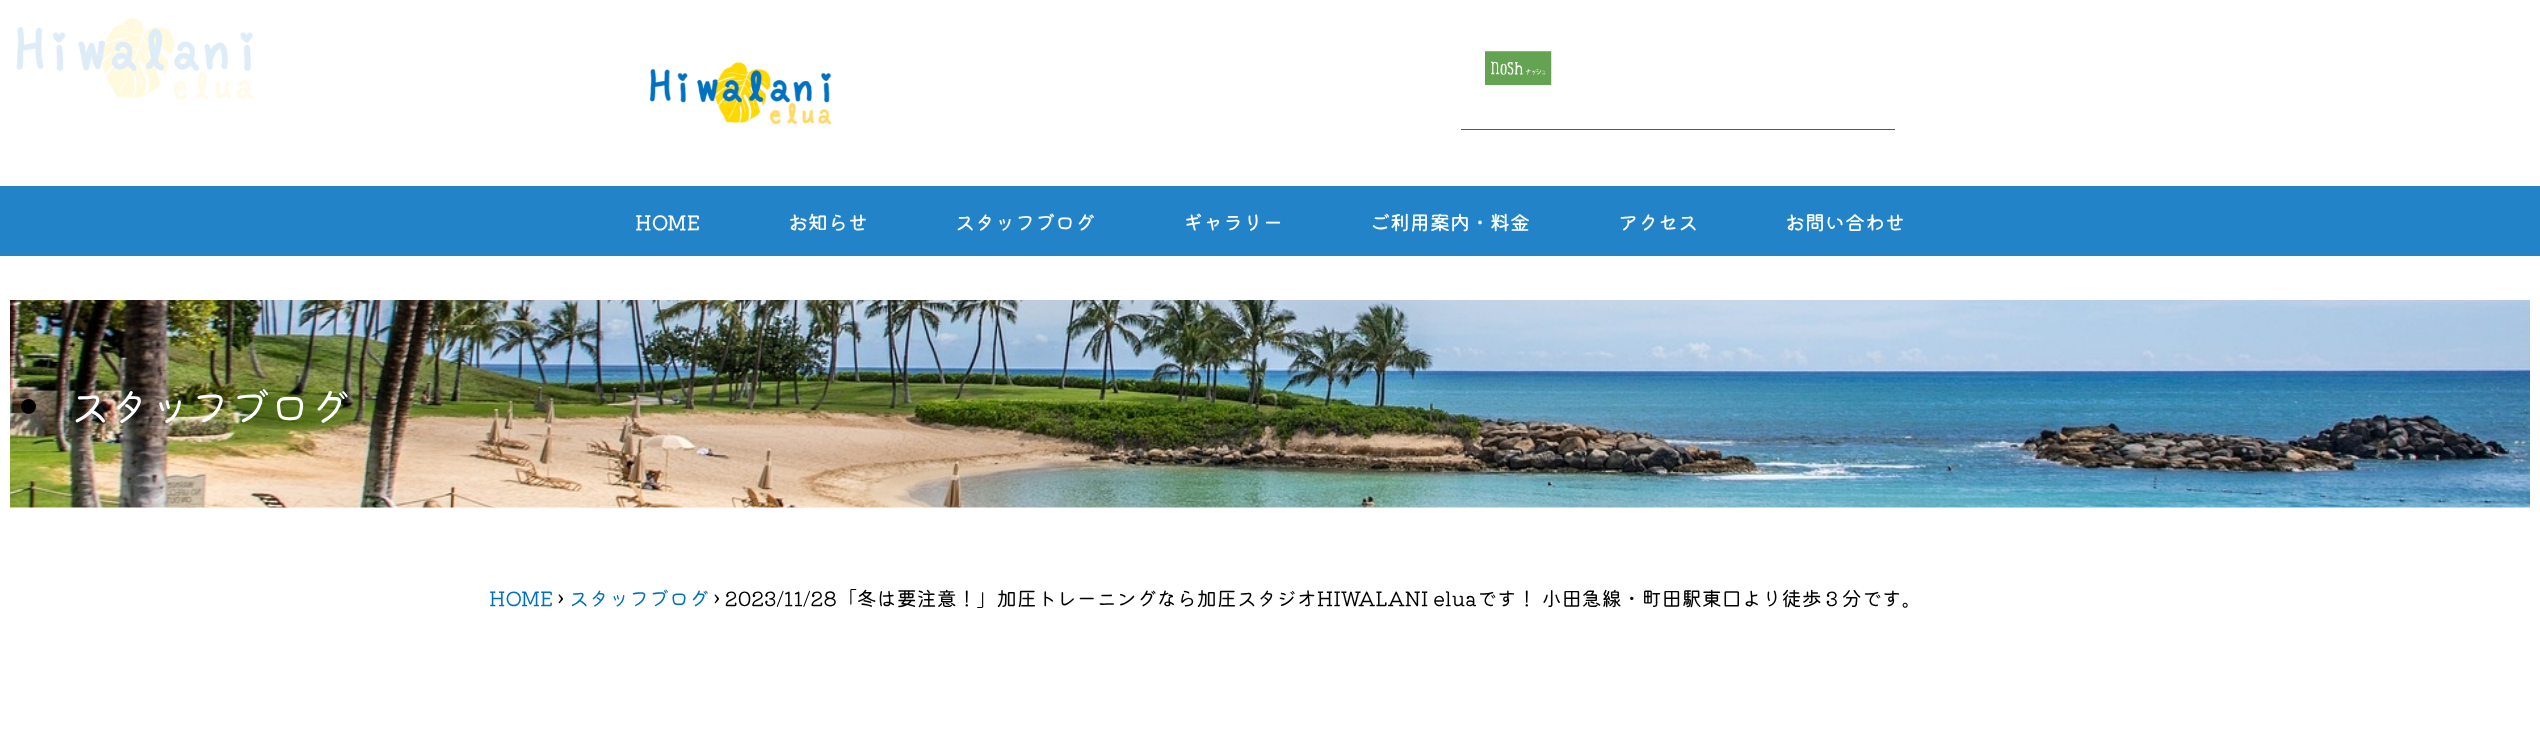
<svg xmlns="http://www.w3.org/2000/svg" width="2540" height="731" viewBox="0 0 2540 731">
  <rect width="100%" height="100%" fill="#fff"/>
  <image x="16" y="17" width="238" height="84" href="img/1.png"/>
  <image x="649" y="62" width="183" height="63" href="img/2.png"/>
  <image x="1485" y="51" width="67" height="34" href="img/3.png"/>
  <path d="M1461 129h434v1H1461z" fill="#0070c0"/>
  <path d="M0 186h2540v70H0z" fill="#2283c8"/>
  <image x="10" y="300" width="2520" height="208" href="img/4.png"/>
  <circle cx="28.5" cy="406.5" r="7.5" fill="#000"/>
  <g font-family="Kiwi Maru" font-size="20" font-weight="500" fill="#fff">
    <text x="635" y="230">HOME</text>
    <text x="788" y="230">お知らせ</text>
    <text x="955" y="230">スタッフブログ</text>
    <text x="1183" y="230">ギャラリー</text>
    <text x="1370" y="230">ご利用案内・料金</text>
    <text x="1618" y="230">アクセス</text>
    <text x="1785" y="230">お問い合わせ</text>
  </g>
  <text x="70" y="422" font-family="Kiwi Maru" font-size="40" fill="#fff">スタッフブログ</text>
  <text x="489" y="606" font-family="Kiwi Maru" font-size="20" fill="#0070c0">HOME</text>
  <text x="558" y="606" font-family="Kiwi Maru" font-size="20" fill="#000">›</text>
  <text x="569" y="606" font-family="Kiwi Maru" font-size="20" fill="#0070c0">スタッフブログ</text>
  <text x="714" y="606" font-family="Kiwi Maru" font-size="20" fill="#000">› 2023/11/28「冬は要注意！」加圧トレーニングなら加圧スタジオHIWALANI eluaです！ 小田急線・町田駅東口より徒歩３分です。</text>
</svg>
